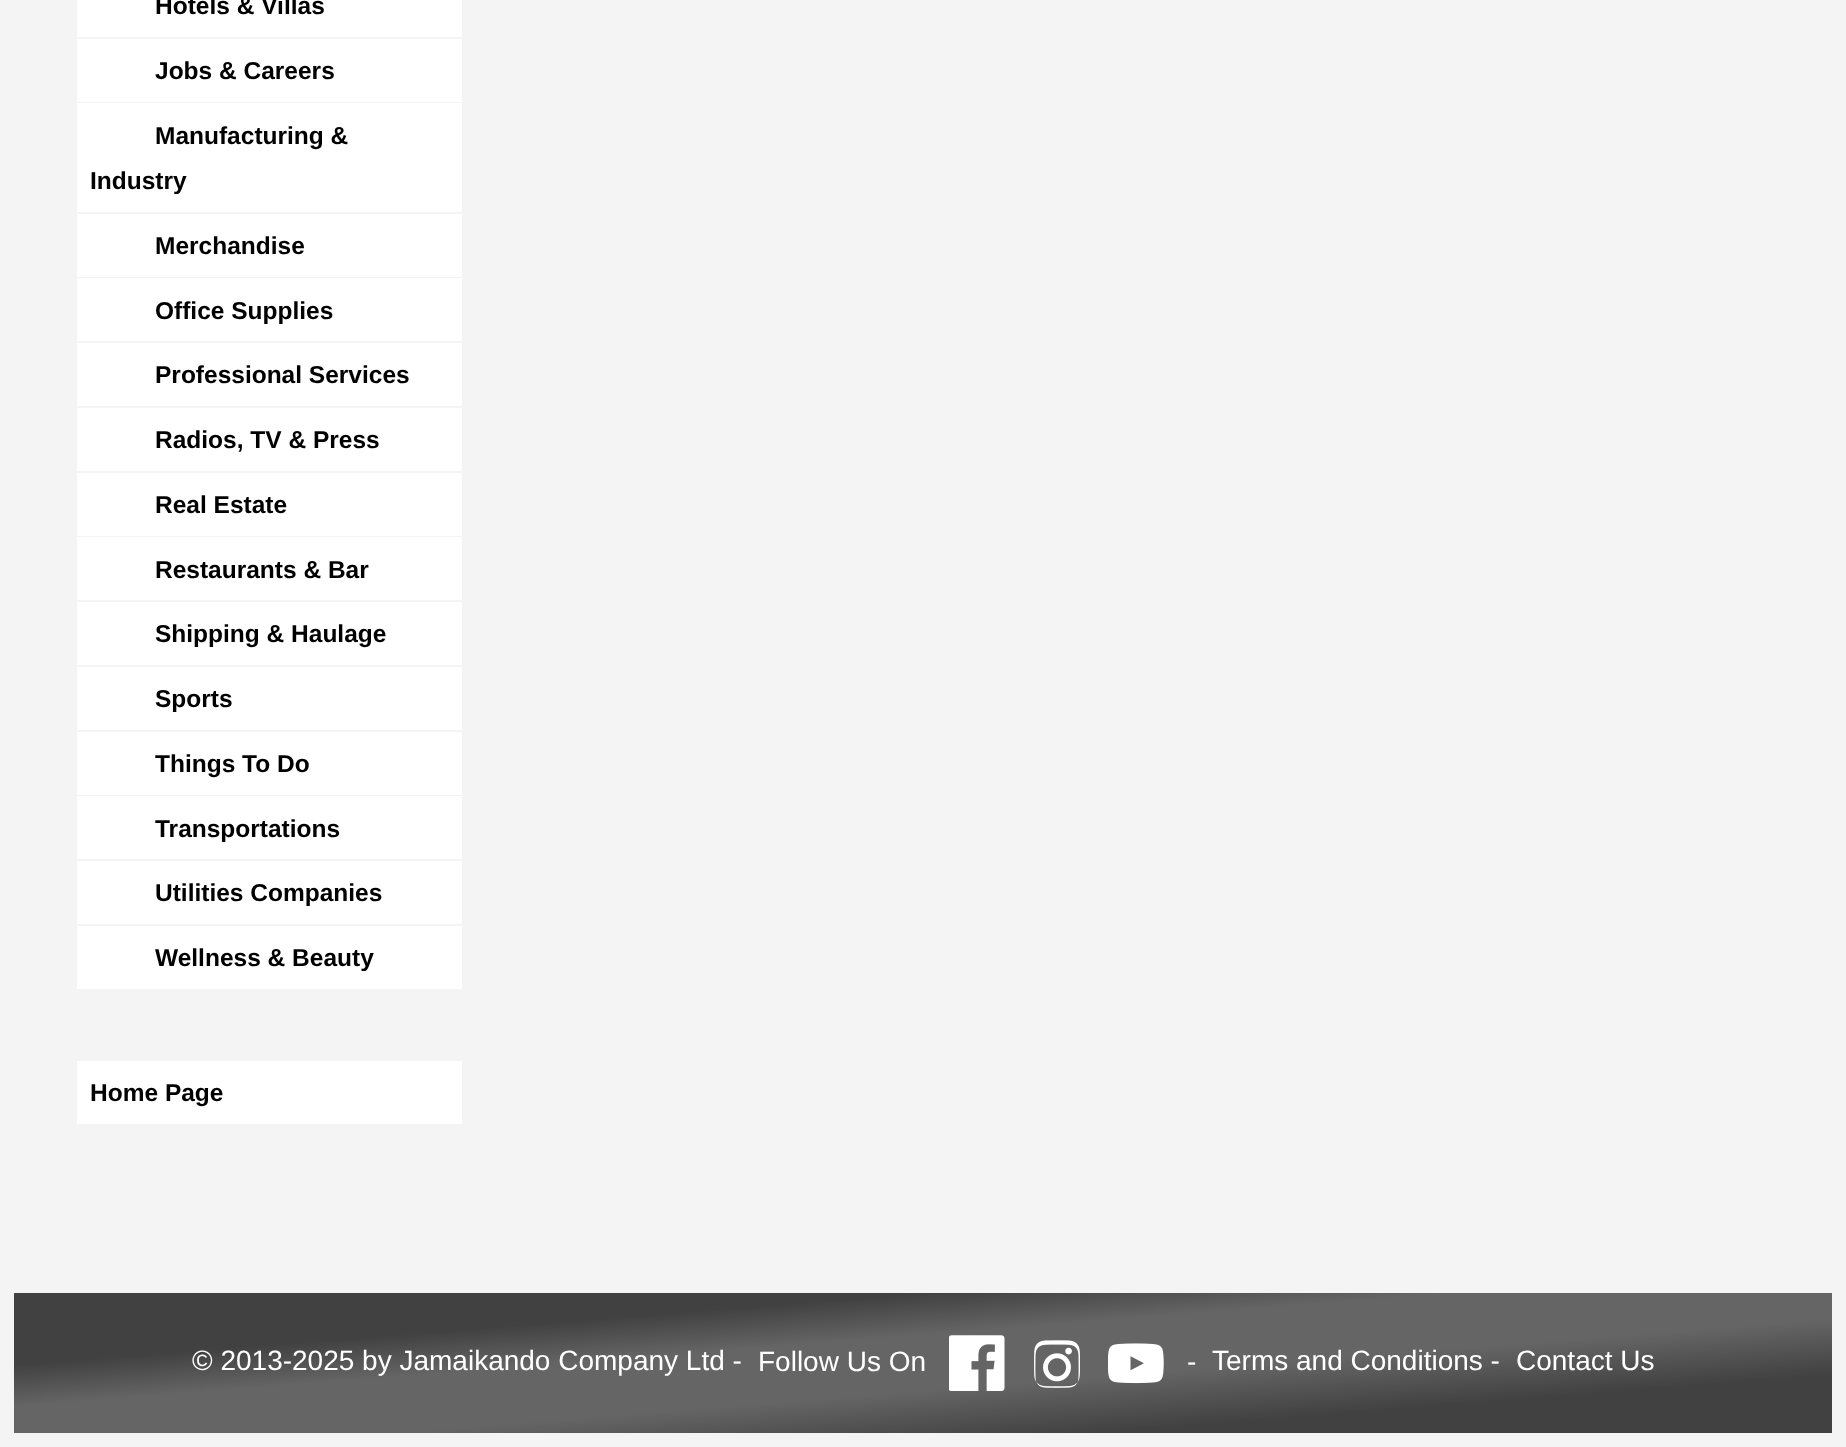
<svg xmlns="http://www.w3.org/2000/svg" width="1846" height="1447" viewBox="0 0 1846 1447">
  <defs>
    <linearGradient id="g1" gradientUnits="userSpaceOnUse" x1="912" y1="1224" x2="934" y2="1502"><stop offset="0" stop-color="#414141"/><stop offset="0.25" stop-color="#414141"/><stop offset="0.4" stop-color="#656565"/><stop offset="0.6" stop-color="#656565"/><stop offset="0.8" stop-color="#414141"/><stop offset="1" stop-color="#414141"/></linearGradient>
  </defs>
  <rect width="100%" height="100%" fill="#f4f4f4"/>
  <path d="M77 0h385v37H77z" fill="#fff"/>
  <path d="M77 39h385v63H77z" fill="#fff"/>
  <path d="M77 103h385v109H77z" fill="#fff"/>
  <path d="M77 214h385v63H77z" fill="#fff"/>
  <path d="M77 278h385v63H77z" fill="#fff"/>
  <path d="M77 343h385v63H77z" fill="#fff"/>
  <path d="M77 408h385v63H77z" fill="#fff"/>
  <path d="M77 473h385v63H77z" fill="#fff"/>
  <path d="M77 537h385v63H77z" fill="#fff"/>
  <path d="M77 602h385v63H77z" fill="#fff"/>
  <path d="M77 667h385v63H77z" fill="#fff"/>
  <path d="M77 732h385v63H77z" fill="#fff"/>
  <path d="M77 796h385v63H77z" fill="#fff"/>
  <path d="M77 861h385v63H77z" fill="#fff"/>
  <path d="M77 926h385v63H77z" fill="#fff"/>
  <path d="M77 1061h385v63H77z" fill="#fff"/>
  <path d="M14 1293h1818v140H14z" fill="url(#g1)"/>
  <image x="949" y="1335" width="56" height="56" href="img/1.png"/>
  <image x="1034" y="1340" width="46" height="48" href="img/2.png"/>
  <image x="1108" y="1343" width="56" height="41" href="img/3.png"/>
  <g font-family="Liberation Sans" font-size="24.5" font-weight="bold" fill="#000">
    <text x="155" y="14">Hotels &amp; Villas</text>
    <text x="155" y="79">Jobs &amp; Careers</text>
    <text x="155" y="144">Manufacturing &amp;</text>
    <text x="90" y="189">Industry</text>
    <text x="155" y="254">Merchandise</text>
    <text x="155" y="319">Office Supplies</text>
    <text x="155" y="383">Professional Services</text>
    <text x="155" y="448">Radios, TV &amp; Press</text>
    <text x="155" y="513">Real Estate</text>
    <text x="155" y="578">Restaurants &amp; Bar</text>
    <text x="155" y="642">Shipping &amp; Haulage</text>
    <text x="155" y="707">Sports</text>
    <text x="155" y="772">Things To Do</text>
    <text x="155" y="837">Transportations</text>
    <text x="155" y="901">Utilities Companies</text>
    <text x="155" y="966">Wellness &amp; Beauty</text>
    <text x="90" y="1101">Home Page</text>
  </g>
  <g font-family="Liberation Sans" font-size="28" fill="#fff">
    <text x="192" y="1370">© 2013-2025 by Jamaikando Company Ltd -</text>
    <text x="758" y="1371">Follow Us On</text>
    <text x="1187" y="1371">-</text>
    <text x="1212" y="1370">Terms and Conditions -</text>
    <text x="1516" y="1370">Contact Us</text>
  </g>
</svg>
